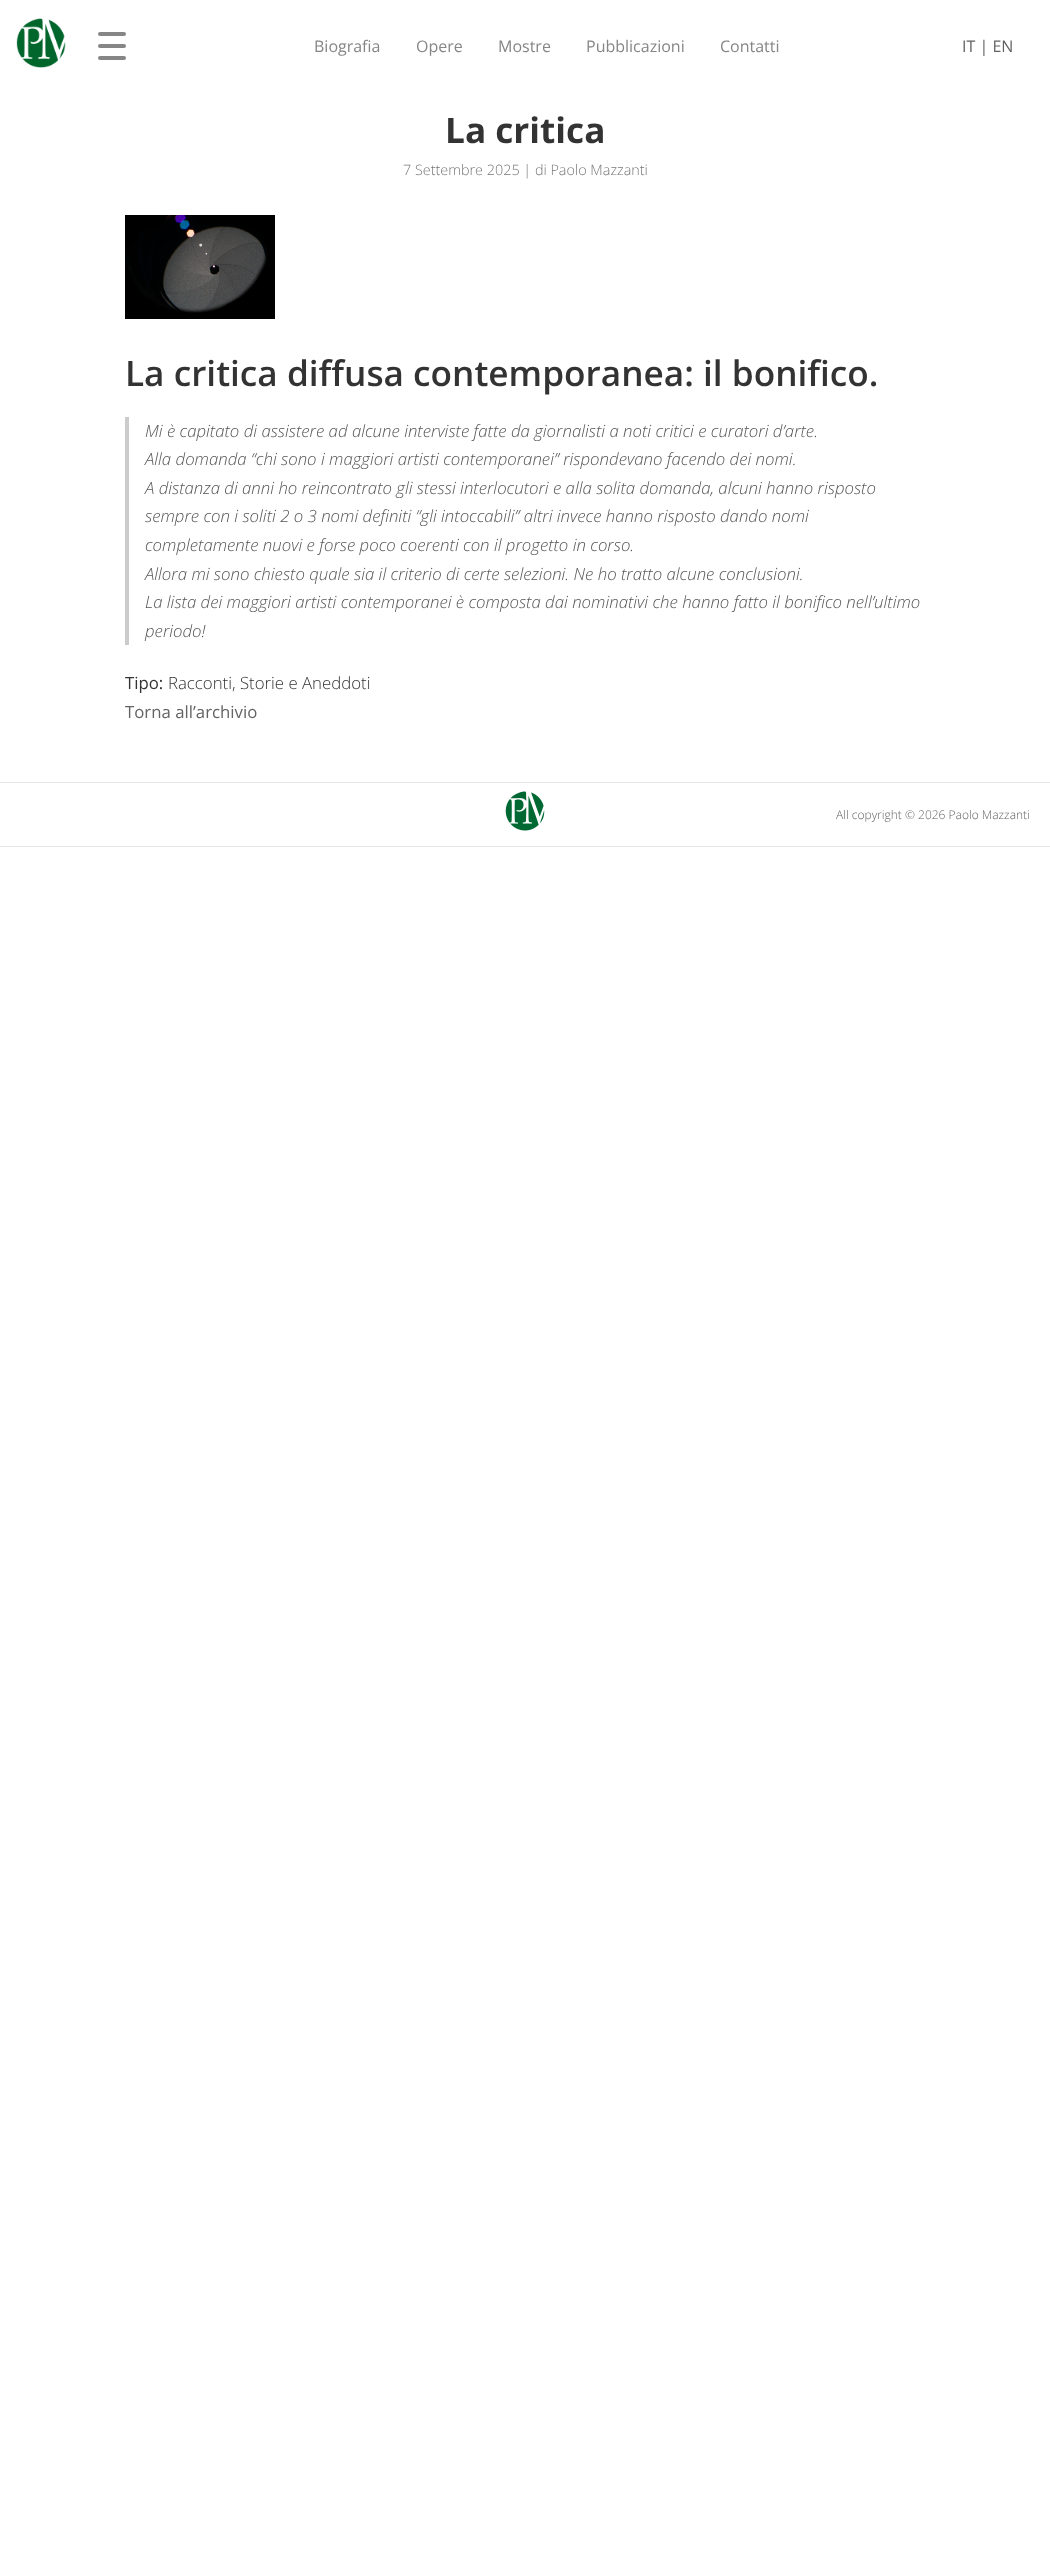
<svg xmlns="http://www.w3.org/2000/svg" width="1050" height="2569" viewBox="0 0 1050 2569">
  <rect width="100%" height="100%" fill="#fff"/>
  <image x="16" y="18" width="50" height="50" href="img/1.png"/>
  <rect x="98" y="32" width="28" height="4" rx="2" fill="#868686"/>
  <rect x="98" y="44" width="28" height="4" rx="2" fill="#868686"/>
  <rect x="98" y="56" width="28" height="4" rx="2" fill="#868686"/>
  <image x="125" y="215" width="150" height="104" href="img/2.png"/>
  <path d="M125 417h4v228H125z" fill="#ccc"/>
  <path d="M0 782h1050v1H0z" fill="#e7e7e7"/>
  <image x="505" y="791" width="40" height="40" href="img/3.png"/>
  <path d="M0 846h1050v1H0z" fill="#e7e7e7"/>
  <g font-family="Open Sans" font-size="16" fill="#868686">
    <text x="314" y="52">Biografia</text>
    <text x="416" y="52">Opere</text>
    <text x="498" y="52">Mostre</text>
    <text x="586" y="52">Pubblicazioni</text>
    <text x="720" y="52">Contatti</text>
  </g>
  <text x="962" y="52" font-family="Open Sans" font-size="16" fill="#636363">IT | EN</text>
  <text x="445" y="143" font-family="Open Sans" font-size="35.2" font-weight="bold" fill="#333">La critica</text>
  <text x="403" y="175" font-family="Open Sans" font-size="14.4" font-weight="300" fill="#777">7 Settembre 2025 | di Paolo Mazzanti</text>
  <text x="125" y="386" font-family="Open Sans" font-size="35.2" font-weight="600" fill="#333">La critica diffusa contemporanea: il bonifico.</text>
  <g font-family="Open Sans" font-size="16.8" font-weight="300" font-style="italic" fill="#555">
    <text x="145" y="437">Mi è capitato di assistere ad alcune interviste fatte da giornalisti a noti critici e curatori d’arte.</text>
    <text x="145" y="465">Alla domanda “chi sono i maggiori artisti contemporanei” rispondevano facendo dei nomi.</text>
    <text x="145" y="494">A distanza di anni ho reincontrato gli stessi interlocutori e alla solita domanda, alcuni hanno risposto</text>
    <text x="145" y="522">sempre con i soliti 2 o 3 nomi definiti “gli intoccabili” altri invece hanno risposto dando nomi</text>
    <text x="145" y="551">completamente nuovi e forse poco coerenti con il progetto in corso.</text>
    <text x="145" y="580">Allora mi sono chiesto quale sia il criterio di certe selezioni. Ne ho tratto alcune conclusioni.</text>
    <text x="145" y="608">La lista dei maggiori artisti contemporanei è composta dai nominativi che hanno fatto il bonifico nell’ultimo</text>
    <text x="145" y="637">periodo!</text>
  </g>
  <text x="125" y="689" font-family="Open Sans" font-size="16.8" fill="#333">Tipo:</text>
  <text x="168" y="689" font-family="Open Sans" font-size="16.8" font-weight="300" fill="#333">Racconti, Storie e Aneddoti</text>
  <text x="125" y="718" font-family="Open Sans" font-size="16.8" fill="#636363">Torna all’archivio</text>
  <text x="836" y="819" font-family="Open Sans" font-size="12" font-weight="300" fill="#636363">All copyright © 2026 Paolo Mazzanti</text>
</svg>
